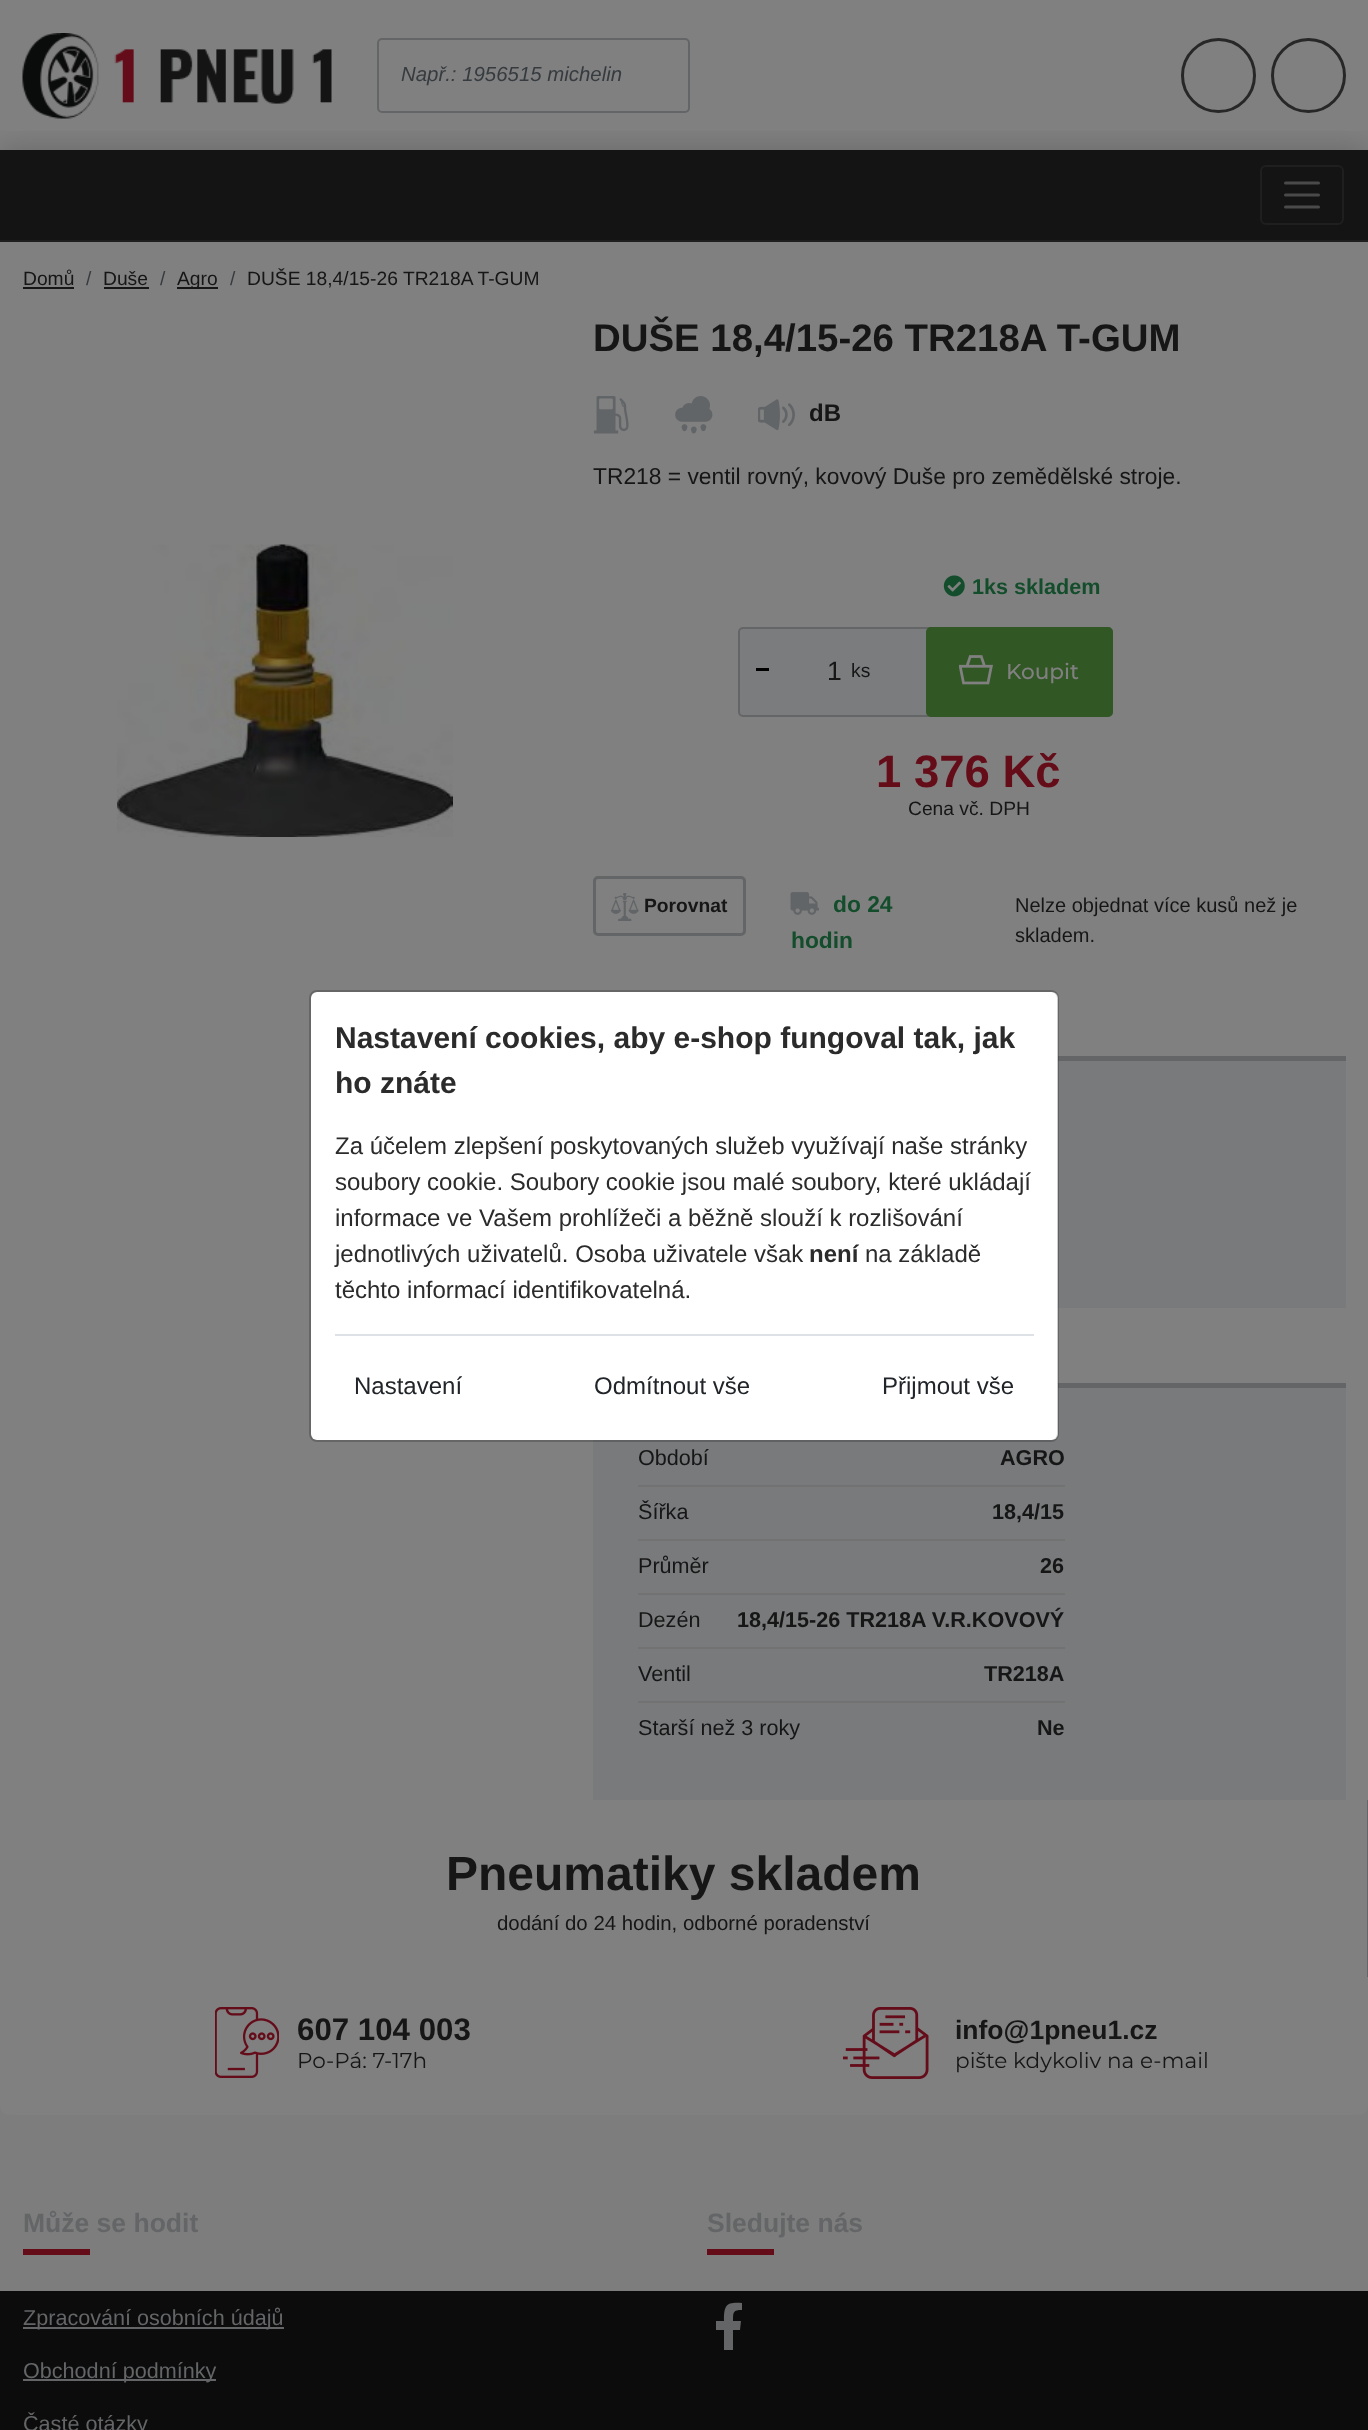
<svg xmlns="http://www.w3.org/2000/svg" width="1368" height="2430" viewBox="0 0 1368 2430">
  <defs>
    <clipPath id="clip1"><path d="M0 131h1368v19H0z"/></clipPath>
  </defs>
  <rect width="100%" height="100%" fill="#808080"/>
  <path d="M0 2106h1368v185H0z" fill="#7d7d7d"/>
  <g clip-path="url(#clip1)">
    <path d="M0 150h1368v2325H0z" fill="#00000033" filter="blur(15px)"/>
  </g>
  <image x="22" y="33" width="310" height="86" href="img/1.png"/>
  <rect x="378" y="39" width="311" height="73" rx="4" fill="none" stroke="#636567" stroke-width="2"/>
  <circle cx="1218.5" cy="75.5" r="36" fill="none" stroke="#272727" stroke-width="3"/>
  <circle cx="1308.5" cy="75.5" r="36" fill="none" stroke="#272727" stroke-width="3"/>
  <path d="M0 150h1368v90H0z" fill="#141415"/>
  <path d="M0 240h1368v2H0z" fill="#1f1f1f"/>
  <rect x="1261" y="166" width="82" height="58" rx="5" fill="none" stroke="#1f1f1f" stroke-width="2"/>
  <path d="M1285.5 183H1318.5M1285.5 195H1318.5M1285.5 207H1318.5" fill="none" stroke="#4a4a4a" stroke-width="3" stroke-linecap="round"/>
  <path d="M23 287h51v2H23z" fill="#161616"/>
  <path d="M104 287h45v2H104z" fill="#161616"/>
  <path d="M177 287h41v2H177z" fill="#161616"/>
  <image x="117" y="544" width="336" height="293" href="img/2.png"/>
  <image x="593" y="396" width="36" height="38" href="img/3.png"/>
  <image x="675" y="396" width="38" height="38" href="img/4.png"/>
  <image x="758" y="399" width="37" height="32" href="img/5.png"/>
  <image x="943" y="575" width="22" height="22" href="img/6.png"/>
  <rect x="739" y="628" width="373" height="88" rx="4" fill="#7b7c7e" stroke="#636567" stroke-width="2"/>
  <path d="M756 668h13v3H756z" fill="#000"/>
  <rect x="927.5" y="628.5" width="184" height="87" rx="3.5" fill="#315724" stroke="#315724" stroke-width="3"/>
  <image x="959" y="655" width="34" height="30" href="img/7.png"/>
  <rect x="594.5" y="877.5" width="150" height="57" rx="3.5" fill="none" stroke="#636567" stroke-width="3"/>
  <image x="611" y="893" width="28" height="28" href="img/8.png"/>
  <image x="790" y="892" width="29" height="23" href="img/9.png"/>
  <path d="M1058 1061h288v247H1058z" fill="#787a7b"/>
  <path d="M1058 1056h288v5H1058z" fill="#636567"/>
  <path d="M593 1388h753v412H593z" fill="#787a7b"/>
  <path d="M1058 1383h288v5H1058z" fill="#636567"/>
  <path d="M638 1485h427v2H638z" fill="#727272"/>
  <path d="M638 1539h427v2H638z" fill="#727272"/>
  <path d="M638 1593h427v2H638z" fill="#727272"/>
  <path d="M638 1647h427v2H638z" fill="#727272"/>
  <path d="M638 1701h427v2H638z" fill="#727272"/>
  <rect x="311" y="992" width="747" height="448" rx="6" fill="#fff"/>
  <rect x="310" y="991" width="748" height="450" rx="7" fill="none" stroke="#00000033" stroke-width="2"/>
  <path d="M335 1334h699v2H335z" fill="#dee2e6"/>
  <path d="M0 1800H1368V2106C1368 2111 1364 2115 1359 2115H9C4 2115 0 2111 0 2106Z" fill="#808080"/>
  <path d="M1367 1800h1v177H1367z" fill="#636567"/>
  <image x="215" y="2007" width="64" height="71" href="img/10.png"/>
  <image x="843" y="2007" width="86" height="72" href="img/11.png"/>
  <path d="M23 2249h67v6H23z" fill="#650c19"/>
  <path d="M0 2291h1368v139H0z" fill="#0c0c0c"/>
  <path d="M23 2327h261v2H23z" fill="#636567"/>
  <path d="M23 2379h193v2H23z" fill="#636567"/>
  <path d="M707 2249h67v6H707z" fill="#650c19"/>
  <path d="M740 2330H733V2350H724V2330H716V2321H724C724 2305 726 2302 742 2303V2310C733 2310 733 2312 733 2321H741Z" fill="#636567"/>
  <text x="401" y="81" font-family="Liberation Sans" font-size="20.4" font-style="italic" fill="#363b3f">Např.: 1956515 michelin</text>
  <text x="23" y="285" font-family="Liberation Sans" font-size="19.25" fill="#161616">Domů</text>
  <text x="86" y="285" font-family="Liberation Sans" font-size="19.25" fill="#363b3f">/</text>
  <text x="103" y="285" font-family="Liberation Sans" font-size="19.25" fill="#161616">Duše</text>
  <text x="160" y="285" font-family="Liberation Sans" font-size="19.25" fill="#363b3f">/</text>
  <text x="177" y="285" font-family="Liberation Sans" font-size="19.25" fill="#161616">Agro</text>
  <text x="230" y="285" font-family="Liberation Sans" font-size="19.25" fill="#363b3f">/</text>
  <text x="247" y="285" font-family="Liberation Sans" font-size="19.25" fill="#161616">DUŠE 18,4/15-26 TR218A T-GUM</text>
  <text x="593" y="351" font-family="Liberation Sans" font-size="38.4" font-weight="bold" fill="#161616">DUŠE 18,4/15-26 TR218A T-GUM</text>
  <text x="809" y="421" font-family="Liberation Sans" font-size="24" font-weight="bold" fill="#161616">dB</text>
  <text x="593" y="484" font-family="Liberation Sans" font-size="22.8" fill="#161616">TR218 = ventil rovný, kovový Duše pro zemědělské stroje.</text>
  <text x="972" y="594" font-family="Liberation Sans" font-size="21.6" font-weight="bold" fill="#134d2c">1ks skladem</text>
  <text x="827" y="680" font-family="Liberation Sans" font-size="26.5" fill="#161616">1</text>
  <text x="851" y="677" font-family="Liberation Sans" font-size="19.25" fill="#161616">ks</text>
  <text x="1006" y="679" font-family="Montserrat" font-size="21.6" font-weight="500" fill="#808080">Koupit</text>
  <text x="876" y="787" font-family="Liberation Sans" font-size="45.5" font-weight="bold" fill="#650c19">1 376 Kč</text>
  <text x="908" y="815" font-family="Liberation Sans" font-size="19.25" fill="#161616">Cena vč. DPH</text>
  <text x="644" y="912" font-family="Liberation Sans" font-size="19.25" font-weight="bold" fill="#161616">Porovnat</text>
  <g font-family="Liberation Sans" font-size="22.8" font-weight="bold" fill="#134d2c">
    <text x="833" y="912">do 24</text>
    <text x="791" y="948">hodin</text>
  </g>
  <g font-family="Liberation Sans" font-size="20" fill="#161616">
    <text x="1015" y="912">Nelze objednat více kusů než je</text>
    <text x="1015" y="942">skladem.</text>
  </g>
  <text x="638" y="1465" font-family="Liberation Sans" font-size="21.6" fill="#161616">Období</text>
  <text x="1000" y="1465" font-family="Liberation Sans" font-size="21.6" font-weight="bold" fill="#161616">AGRO</text>
  <text x="638" y="1519" font-family="Liberation Sans" font-size="21.6" fill="#161616">Šířka</text>
  <text x="992" y="1519" font-family="Liberation Sans" font-size="21.6" font-weight="bold" fill="#161616">18,4/15</text>
  <text x="638" y="1573" font-family="Liberation Sans" font-size="21.6" fill="#161616">Průměr</text>
  <text x="1040" y="1573" font-family="Liberation Sans" font-size="21.6" font-weight="bold" fill="#161616">26</text>
  <text x="638" y="1627" font-family="Liberation Sans" font-size="21.6" fill="#161616">Dezén</text>
  <text x="737" y="1627" font-family="Liberation Sans" font-size="21.6" font-weight="bold" fill="#161616">18,4/15-26 TR218A V.R.KOVOVÝ</text>
  <text x="638" y="1681" font-family="Liberation Sans" font-size="21.6" fill="#161616">Ventil</text>
  <text x="984" y="1681" font-family="Liberation Sans" font-size="21.6" font-weight="bold" fill="#161616">TR218A</text>
  <text x="638" y="1735" font-family="Liberation Sans" font-size="21.6" fill="#161616">Starší než 3 roky</text>
  <text x="1037" y="1735" font-family="Liberation Sans" font-size="21.6" font-weight="bold" fill="#161616">Ne</text>
  <g font-family="Liberation Sans" font-size="30" font-weight="bold" fill="#2b2b2b">
    <text x="335" y="1048">Nastavení cookies, aby e-shop fungoval tak, jak</text>
    <text x="335" y="1093">ho znáte</text>
  </g>
  <g font-family="Liberation Sans" font-size="24" fill="#2b2b2b">
    <text x="335" y="1154">Za účelem zlepšení poskytovaných služeb využívají naše stránky</text>
    <text x="335" y="1190">soubory cookie. Soubory cookie jsou malé soubory, které ukládají</text>
    <text x="335" y="1226">informace ve Vašem prohlížeči a běžně slouží k rozlišování</text>
    <text x="335" y="1262">jednotlivých uživatelů. Osoba uživatele však</text>
  </g>
  <text x="809" y="1262" font-family="Liberation Sans" font-size="24" font-weight="bold" fill="#2b2b2b">není</text>
  <g font-family="Liberation Sans" font-size="24" fill="#2b2b2b">
    <text x="865" y="1262">na základě</text>
    <text x="335" y="1298">těchto informací identifikovatelná.</text>
  </g>
  <g font-family="Liberation Sans" font-size="24" fill="#212529">
    <text x="354" y="1394">Nastavení</text>
    <text x="594" y="1394">Odmítnout vše</text>
    <text x="882" y="1394">Přijmout vše</text>
  </g>
  <text x="446" y="1890" font-family="Liberation Sans" font-size="48" font-weight="bold" fill="#161616">Pneumatiky skladem</text>
  <text x="497" y="1930" font-family="Liberation Sans" font-size="20.4" fill="#161616">dodání do 24 hodin, odborné poradenství</text>
  <text x="297" y="2040" font-family="Liberation Sans" font-size="31.25" font-weight="bold" fill="#161616">607 104 003</text>
  <text x="297" y="2068" font-family="Montserrat" font-size="21.6" fill="#161616">Po-Pá: 7-17h</text>
  <text x="955" y="2039" font-family="Liberation Sans" font-size="26.5" font-weight="bold" fill="#161616">info@1pneu1.cz</text>
  <text x="955" y="2068" font-family="Montserrat" font-size="21.6" fill="#161616">pište kdykoliv na e-mail</text>
  <text x="23" y="2232" font-family="Liberation Sans" font-size="26.5" font-weight="bold" fill="#636567">Může se hodit</text>
  <g font-family="Liberation Sans" font-size="21.6" fill="#636567">
    <text x="23" y="2325">Zpracování osobních údajů</text>
    <text x="23" y="2378">Obchodní podmínky</text>
    <text x="23" y="2431">Časté otázky</text>
  </g>
  <text x="707" y="2232" font-family="Liberation Sans" font-size="26.5" font-weight="bold" fill="#636567">Sledujte nás</text>
</svg>
